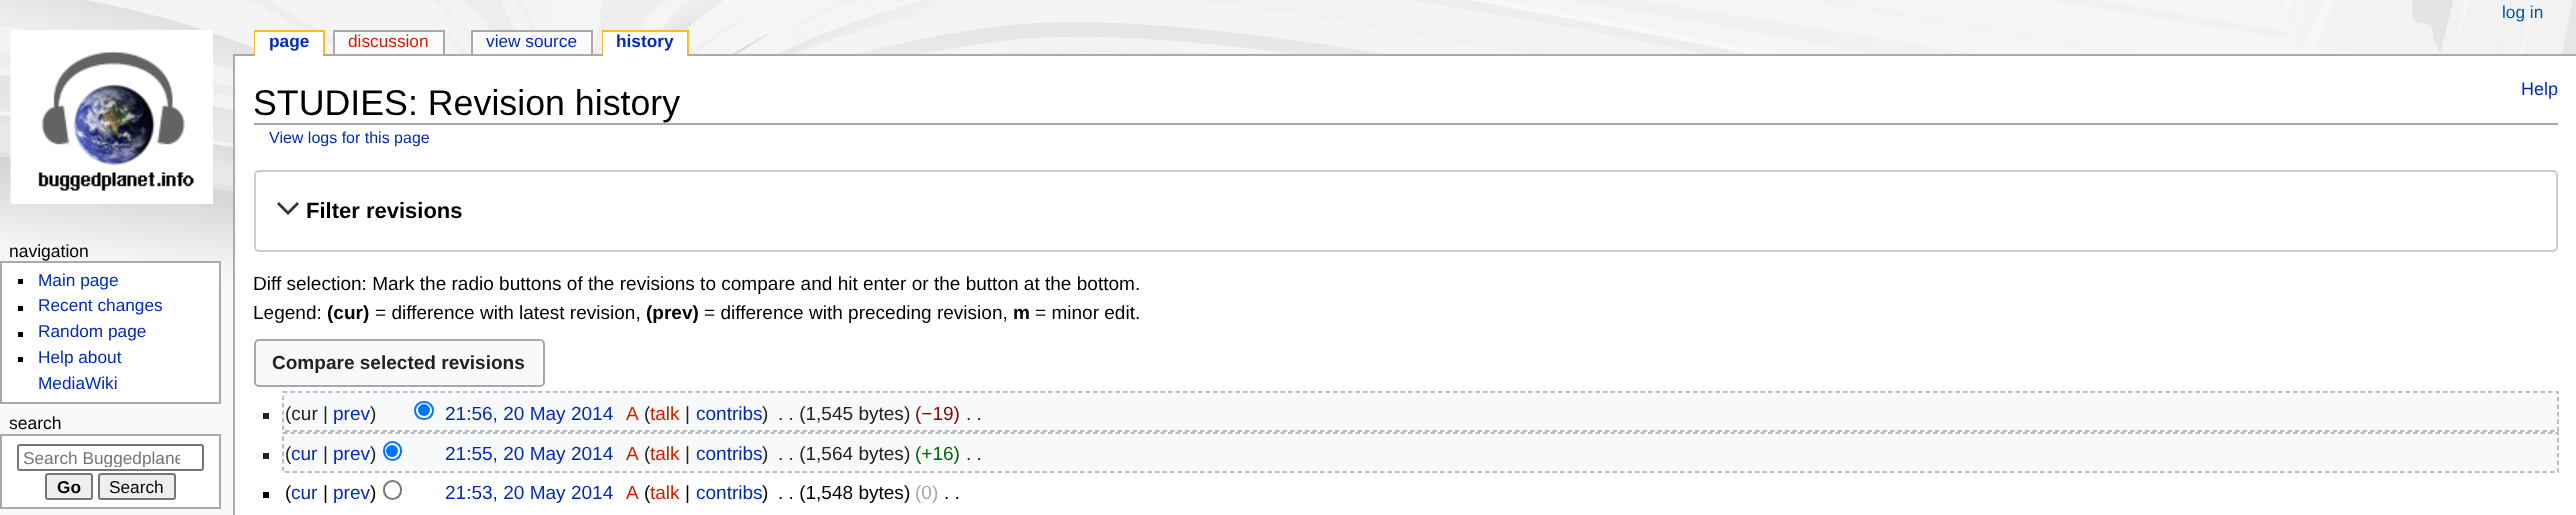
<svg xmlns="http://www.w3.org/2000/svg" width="2576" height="515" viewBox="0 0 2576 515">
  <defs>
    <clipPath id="clip1"><path d="M23 449h157v18H23z"/></clipPath>
  </defs>
  <rect width="100%" height="100%" fill="#f9f9f9"/>
  <image x="0" y="0" width="2576" height="315" href="img/1.png"/>
  <image x="10" y="30" width="203" height="174" href="img/2.png"/>
  <path d="M254 30h70v2H254z" fill="#fabd23"/>
  <path d="M323 30h2v24H323z" fill="#fabd23"/>
  <path d="M254 30h2v24H254z" fill="#fabd23"/>
  <path d="M233 54h2343v2H233z" fill="#aaa"/>
  <path d="M255 32h68v24H255z" fill="#fff"/>
  <path d="M333 30h111v2H333z" fill="#aaa"/>
  <path d="M443 30h2v24H443z" fill="#aaa"/>
  <path d="M333 30h2v24H333z" fill="#aaa"/>
  <path d="M335 32h108v22H335z" fill="#fbfbfb"/>
  <path d="M471 30h122v2H471z" fill="#aaa"/>
  <path d="M591 30h2v24H591z" fill="#aaa"/>
  <path d="M471 30h2v24H471z" fill="#aaa"/>
  <path d="M473 32h118v22H473z" fill="#fbfbfb"/>
  <path d="M602 30h87v2H602z" fill="#fabd23"/>
  <path d="M687 30h2v24H687z" fill="#fabd23"/>
  <path d="M602 30h2v24H602z" fill="#fabd23"/>
  <path d="M603 32h84v24H603z" fill="#fff"/>
  <path d="M1 262h219v141H1z" fill="#fff" stroke="#aaa" stroke-width="2"/>
  <path d="M18 279h5v5H18z" fill="#000"/>
  <path d="M18 306h5v5H18z" fill="#000"/>
  <path d="M18 332h5v5H18z" fill="#000"/>
  <path d="M18 357h5v5H18z" fill="#000"/>
  <path d="M1 435h219v73H1z" fill="#fff" stroke="#aaa" stroke-width="2"/>
  <rect x="18" y="445" width="185" height="25" rx="2" fill="none" stroke="#767676" stroke-width="2"/>
  <rect x="46" y="474" width="46" height="25" rx="2" fill="#efefef" stroke="#767676" stroke-width="2"/>
  <rect x="99" y="474" width="76" height="25" rx="2" fill="#efefef" stroke="#767676" stroke-width="2"/>
  <path d="M235 56h2341v459H235z" fill="#fff"/>
  <path d="M233 54h2v461H233z" fill="#aaa"/>
  <path d="M254 123h2304v2H254z" fill="#a2a9b1"/>
  <rect x="255" y="171" width="2302" height="80" rx="4" fill="none" stroke="#ccc" stroke-width="2"/>
  <path d="M297 202L288 211L279 202L277 204L288 215L299 204Z" fill="#333"/>
  <rect x="255" y="340" width="289" height="46" rx="4" fill="#f8f9fa" stroke="#a2a9b1" stroke-width="2"/>
  <path d="M284 393h2274v38H284z" fill="#f8f9fa"/>
  <path d="M263 413h6v6H263z" fill="#202122"/>
  <rect x="415" y="402" width="18" height="17" rx="8.5" fill="#fff" stroke="#0075ff" stroke-width="2"/>
  <circle cx="424" cy="410" r="6" fill="#0075ff"/>
  <path d="M284 434h2274v37H284z" fill="#f8f9fa"/>
  <path d="M263 453h6v6H263z" fill="#202122"/>
  <rect x="384" y="442" width="17" height="18" rx="8.5" fill="#fff" stroke="#0075ff" stroke-width="2"/>
  <circle cx="392" cy="451" r="6" fill="#0075ff"/>
  <path d="M263 492h6v6H263z" fill="#000"/>
  <rect x="384" y="481" width="17" height="18" rx="8.5" fill="none" stroke="#767676" stroke-width="2"/>
  <text x="2502" y="18" font-family="Liberation Sans" font-size="17.25" fill="#005896">log in</text>
  <text x="269" y="47" font-family="Liberation Sans" font-size="17.25" font-weight="bold" fill="#002bb8">page</text>
  <text x="348" y="47" font-family="Liberation Sans" font-size="17.25" fill="#c20">discussion</text>
  <text x="486" y="47" font-family="Liberation Sans" font-size="17.25" fill="#002bb8">view source</text>
  <text x="616" y="47" font-family="Liberation Sans" font-size="17.25" font-weight="bold" fill="#002bb8">history</text>
  <text x="9" y="257" font-family="Liberation Sans" font-size="17.5" fill="#000">navigation</text>
  <g font-family="Liberation Sans" font-size="17.25" fill="#002bb8">
    <text x="38" y="286">Main page</text>
    <text x="38" y="311">Recent changes</text>
    <text x="38" y="337">Random page</text>
    <text x="38" y="363">Help about</text>
    <text x="38" y="389">MediaWiki</text>
  </g>
  <text x="9" y="429" font-family="Liberation Sans" font-size="17.5" fill="#000">search</text>
  <g clip-path="url(#clip1)">
    <text x="23" y="464" font-family="Liberation Sans" font-size="17.25" fill="#757575">Search Buggedplane</text>
  </g>
  <text x="57" y="493" font-family="Liberation Sans" font-size="17.25" font-weight="bold" fill="#000">Go</text>
  <text x="109" y="493" font-family="Liberation Sans" font-size="17.25" fill="#000">Search</text>
  <text x="253" y="115" font-family="Liberation Sans" font-size="35.75" fill="#000">STUDIES: Revision history</text>
  <text x="2521" y="95" font-family="Liberation Sans" font-size="18" fill="#002bb8">Help</text>
  <text x="269" y="143" font-family="Liberation Sans" font-size="16" fill="#002bb8">View logs for this page</text>
  <text x="306" y="218" font-family="Liberation Sans" font-size="22" font-weight="bold" fill="#000">Filter revisions</text>
  <g font-family="Liberation Sans" font-size="19.05" fill="#000">
    <text x="253" y="290">Diff selection: Mark the radio buttons of the revisions to compare and hit enter or the button at the bottom.</text>
    <text x="253" y="319">Legend:</text>
  </g>
  <text x="327" y="319" font-family="Liberation Sans" font-size="19.05" font-weight="bold" fill="#000">(cur)</text>
  <text x="375" y="319" font-family="Liberation Sans" font-size="19.05" fill="#000">= difference with latest revision,</text>
  <text x="646" y="319" font-family="Liberation Sans" font-size="19.05" font-weight="bold" fill="#000">(prev)</text>
  <text x="704" y="319" font-family="Liberation Sans" font-size="19.05" fill="#000">= difference with preceding revision,</text>
  <text x="1013" y="319" font-family="Liberation Sans" font-size="19.05" font-weight="bold" fill="#000">m</text>
  <text x="1035" y="319" font-family="Liberation Sans" font-size="19.05" fill="#000">= minor edit.</text>
  <text x="272" y="369" font-family="Liberation Sans" font-size="19.05" font-weight="bold" fill="#202122">Compare selected revisions</text>
  <text x="285" y="420" font-family="Liberation Sans" font-size="19.05" fill="#202122">(cur |</text>
  <text x="333" y="420" font-family="Liberation Sans" font-size="19.05" fill="#002bb8">prev</text>
  <text x="370" y="420" font-family="Liberation Sans" font-size="19.05" fill="#202122">)</text>
  <text x="445" y="420" font-family="Liberation Sans" font-size="19.05" fill="#002bb8">21:56, 20 May 2014</text>
  <text x="626" y="420" font-family="Liberation Sans" font-size="19.05" fill="#c20">A</text>
  <text x="644" y="420" font-family="Liberation Sans" font-size="19.05" fill="#202122">(</text>
  <text x="650" y="420" font-family="Liberation Sans" font-size="19.05" fill="#c20">talk</text>
  <text x="685" y="420" font-family="Liberation Sans" font-size="19.05" fill="#202122">|</text>
  <text x="696" y="420" font-family="Liberation Sans" font-size="19.05" fill="#002bb8">contribs</text>
  <g font-family="Liberation Sans" font-size="19.05" fill="#202122">
    <text x="762" y="420">)</text>
    <text x="778" y="420">. . (1,545 bytes)</text>
  </g>
  <text x="915" y="420" font-family="Liberation Sans" font-size="19.05" fill="#8b0000">(−19)</text>
  <text x="966" y="420" font-family="Liberation Sans" font-size="19.05" fill="#202122">. .</text>
  <path d="M283 392H2558V431H283Z" fill="none" stroke="#a2a9b1" stroke-width="1.5" stroke-dasharray="4.5 3"/>
  <text x="285" y="460" font-family="Liberation Sans" font-size="19.05" fill="#202122">(</text>
  <text x="291" y="460" font-family="Liberation Sans" font-size="19.05" fill="#002bb8">cur</text>
  <text x="323" y="460" font-family="Liberation Sans" font-size="19.05" fill="#202122">|</text>
  <text x="333" y="460" font-family="Liberation Sans" font-size="19.05" fill="#002bb8">prev</text>
  <text x="370" y="460" font-family="Liberation Sans" font-size="19.05" fill="#202122">)</text>
  <text x="445" y="460" font-family="Liberation Sans" font-size="19.05" fill="#002bb8">21:55, 20 May 2014</text>
  <text x="626" y="460" font-family="Liberation Sans" font-size="19.05" fill="#c20">A</text>
  <text x="644" y="460" font-family="Liberation Sans" font-size="19.05" fill="#202122">(</text>
  <text x="650" y="460" font-family="Liberation Sans" font-size="19.05" fill="#c20">talk</text>
  <text x="685" y="460" font-family="Liberation Sans" font-size="19.05" fill="#202122">|</text>
  <text x="696" y="460" font-family="Liberation Sans" font-size="19.05" fill="#002bb8">contribs</text>
  <g font-family="Liberation Sans" font-size="19.05" fill="#202122">
    <text x="762" y="460">)</text>
    <text x="778" y="460">. . (1,564 bytes)</text>
  </g>
  <text x="915" y="460" font-family="Liberation Sans" font-size="19.05" fill="#006400">(+16)</text>
  <text x="966" y="460" font-family="Liberation Sans" font-size="19.05" fill="#202122">. .</text>
  <path d="M283 433H2558V472H283Z" fill="none" stroke="#a2a9b1" stroke-width="1.5" stroke-dasharray="4.5 3"/>
  <text x="285" y="499" font-family="Liberation Sans" font-size="19.05" fill="#000">(</text>
  <text x="291" y="499" font-family="Liberation Sans" font-size="19.05" fill="#002bb8">cur</text>
  <text x="323" y="499" font-family="Liberation Sans" font-size="19.05" fill="#000">|</text>
  <text x="333" y="499" font-family="Liberation Sans" font-size="19.05" fill="#002bb8">prev</text>
  <text x="370" y="499" font-family="Liberation Sans" font-size="19.05" fill="#000">)</text>
  <text x="445" y="499" font-family="Liberation Sans" font-size="19.05" fill="#002bb8">21:53, 20 May 2014</text>
  <text x="626" y="499" font-family="Liberation Sans" font-size="19.05" fill="#c20">A</text>
  <text x="644" y="499" font-family="Liberation Sans" font-size="19.05" fill="#000">(</text>
  <text x="650" y="499" font-family="Liberation Sans" font-size="19.05" fill="#c20">talk</text>
  <text x="685" y="499" font-family="Liberation Sans" font-size="19.05" fill="#000">|</text>
  <text x="696" y="499" font-family="Liberation Sans" font-size="19.05" fill="#002bb8">contribs</text>
  <g font-family="Liberation Sans" font-size="19.05" fill="#000">
    <text x="762" y="499">)</text>
    <text x="778" y="499">. . (1,548 bytes)</text>
  </g>
  <text x="915" y="499" font-family="Liberation Sans" font-size="19.05" fill="#a2a9b1">(0)</text>
  <text x="944" y="499" font-family="Liberation Sans" font-size="19.05" fill="#000">. .</text>
</svg>
